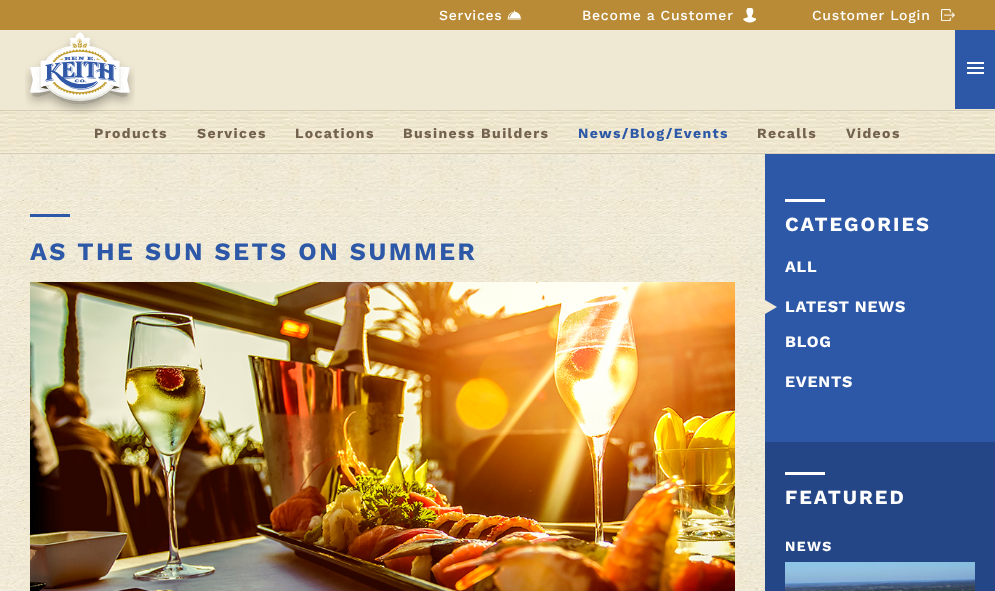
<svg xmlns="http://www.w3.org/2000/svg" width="995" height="591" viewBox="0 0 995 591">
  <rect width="100%" height="100%" fill="#fff"/>
  <image x="0" y="154" width="765" height="437" href="img/1.png"/>
  <path d="M0 0h995v30H0z" fill="#b98b36"/>
  <image x="507" y="10" width="15" height="10" href="img/2.png"/>
  <image x="743" y="8" width="13" height="15" href="img/3.png"/>
  <image x="941" y="9" width="14" height="12" href="img/4.png"/>
  <path d="M0 30h995v80H0z" fill="#efe8d2"/>
  <image x="0" y="111" width="995" height="42" href="img/6.png"/>
  <path d="M0 110h995v1H0z" fill="#d8ceb7"/>
  <image x="25" y="32" width="110" height="83" href="img/5.png"/>
  <path d="M955 30h40v79H955z" fill="#2d58a7"/>
  <path d="M967 62h17v2H967z" fill="#fff"/>
  <path d="M967 67h17v2H967z" fill="#fff"/>
  <path d="M967 72h17v2H967z" fill="#fff"/>
  <path d="M0 153h995v1H0z" fill="#d8ceb7"/>
  <path d="M30 214h40v3H30z" fill="#2d58a7"/>
  <image x="30" y="282" width="705" height="309" href="img/7.png"/>
  <path d="M765 442h230v149H765z" fill="#244686"/>
  <path d="M765 154h230v288H765z" fill="#2d58a7"/>
  <path d="M785 199h40v3H785z" fill="#fff"/>
  <path d="M765 314V300L777 307Z" fill="#efe9d5"/>
  <path d="M785 472h40v3H785z" fill="#fff"/>
  <image x="785" y="562" width="190" height="29" href="img/8.png"/>
  <g font-family="Work Sans" font-size="14" font-weight="500" letter-spacing="0.75" fill="#fff">
    <text x="439" y="20">Services</text>
    <text x="582" y="20">Become a Customer</text>
    <text x="812" y="20">Customer Login</text>
  </g>
  <g font-family="Work Sans" font-size="14" font-weight="bold" letter-spacing="1.4" fill="#73624d">
    <text x="94" y="138">Products</text>
    <text x="197" y="138">Services</text>
    <text x="295" y="138">Locations</text>
    <text x="403" y="138">Business Builders</text>
  </g>
  <text x="578" y="138" font-family="Work Sans" font-size="14" font-weight="bold" letter-spacing="1.4" fill="#2d58a7">News/Blog/Events</text>
  <g font-family="Work Sans" font-size="14" font-weight="bold" letter-spacing="1.4" fill="#73624d">
    <text x="757" y="138">Recalls</text>
    <text x="846" y="138">Videos</text>
  </g>
  <text x="30" y="260" font-family="Work Sans" font-size="25" font-weight="bold" letter-spacing="2.5" fill="#2d58a7">AS THE SUN SETS ON SUMMER</text>
  <text x="785" y="231" font-family="Work Sans" font-size="20" font-weight="bold" letter-spacing="2" fill="#fff">CATEGORIES</text>
  <g font-family="Work Sans" font-size="16" font-weight="bold" letter-spacing="0.75" fill="#fff">
    <text x="785" y="272">ALL</text>
    <text x="785" y="312">LATEST NEWS</text>
    <text x="785" y="347">BLOG</text>
    <text x="785" y="387">EVENTS</text>
  </g>
  <text x="785" y="504" font-family="Work Sans" font-size="20" font-weight="bold" letter-spacing="2" fill="#fff">FEATURED</text>
  <text x="785" y="551" font-family="Work Sans" font-size="14" font-weight="bold" letter-spacing="1.4" fill="#fff">NEWS</text>
</svg>
